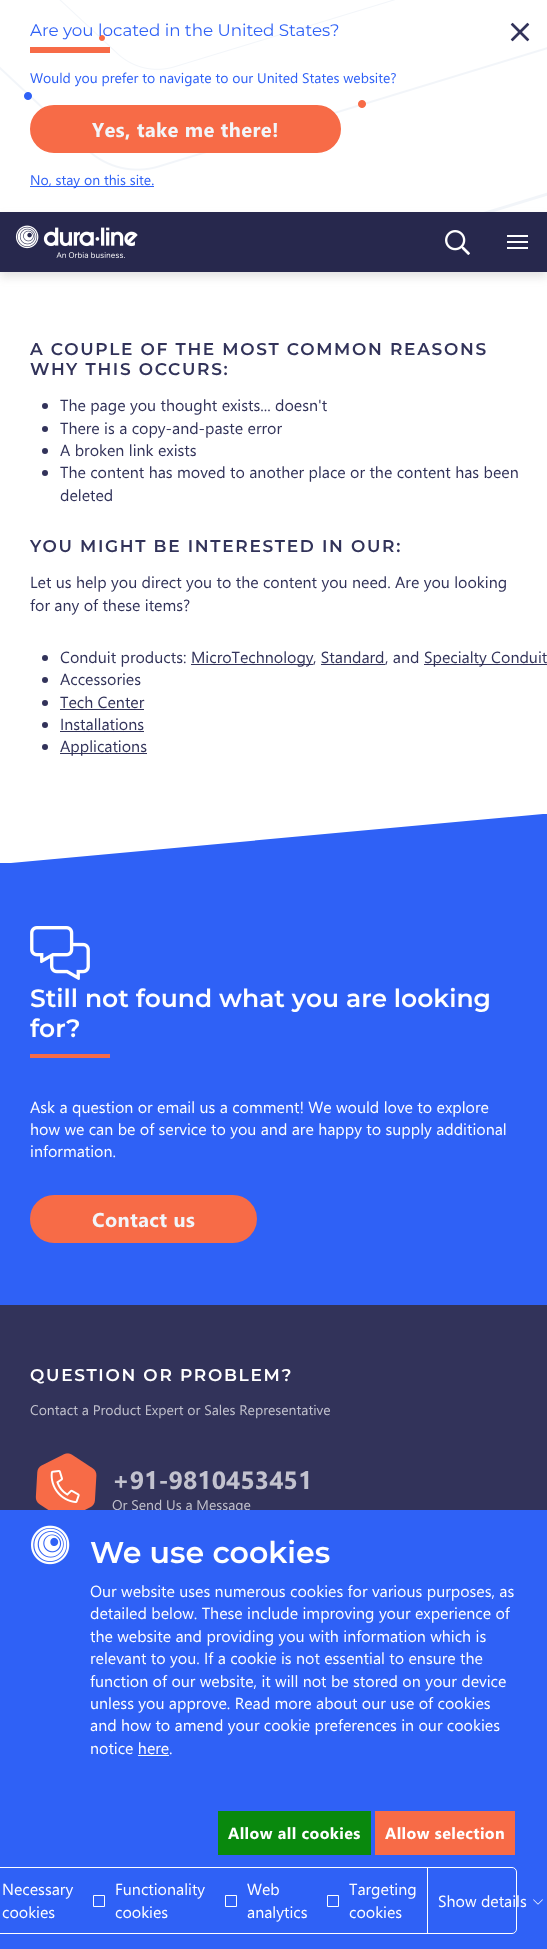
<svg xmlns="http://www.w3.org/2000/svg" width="547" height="1949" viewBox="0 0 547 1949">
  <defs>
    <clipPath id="clip1"><path d="M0 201H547V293H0ZM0 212H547V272H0Z" clip-rule="evenodd"/></clipPath>
  </defs>
  <rect width="100%" height="100%" fill="#fff"/>
  <image x="0" y="0" width="547" height="212" href="img/1.png"/>
  <path d="M30 47h80v6H30z" fill="#f76b47"/>
  <image x="510" y="22" width="20" height="20" href="img/2.png"/>
  <rect x="31" y="106" width="309" height="46" rx="23" fill="#f76b47" stroke="#f76b47" stroke-width="2"/>
  <path d="M30 186h124v1H30z" fill="#2f61f6"/>
  <path d="M0 212h547v60H0z" fill="#27284d"/>
  <g clip-path="url(#clip1)">
    <path d="M0 217h547v60H0z" fill="#736d6d33" filter="blur(5px)"/>
  </g>
  <image x="15" y="225" width="123" height="33" href="img/3.png"/>
  <path d="M507 235h21v2H507z" fill="#fff"/>
  <path d="M507 241h21v2H507z" fill="#fff"/>
  <path d="M507 247h21v2H507z" fill="#fff"/>
  <image x="445" y="230" width="25" height="25" href="img/4.png"/>
  <circle cx="45" cy="406" r="3" fill="#32335a"/>
  <circle cx="45" cy="429" r="3" fill="#32335a"/>
  <circle cx="45" cy="451" r="3" fill="#32335a"/>
  <circle cx="45" cy="473" r="3" fill="#32335a"/>
  <circle cx="45" cy="658" r="3" fill="#32335a"/>
  <path d="M191 664h122v1H191z" fill="#32335a"/>
  <path d="M424 664h123v1H424z" fill="#32335a"/>
  <path d="M321 664h64v1H321z" fill="#32335a"/>
  <circle cx="45" cy="680" r="3" fill="#32335a"/>
  <circle cx="45" cy="703" r="3" fill="#32335a"/>
  <path d="M60 709h84v1H60z" fill="#32335a"/>
  <circle cx="45" cy="725" r="3" fill="#32335a"/>
  <path d="M60 731h84v1H60z" fill="#32335a"/>
  <circle cx="45" cy="747" r="3" fill="#32335a"/>
  <path d="M60 753h87v1H60z" fill="#32335a"/>
  <path d="M547 814H543L0 864H547Z" fill="#2f61f6"/>
  <path d="M0 863h547v442H0z" fill="#2f61f6"/>
  <image x="30" y="926" width="60" height="54" href="img/5.png"/>
  <path d="M30 1054h80v4H30z" fill="#f76b47"/>
  <rect x="31" y="1196" width="225" height="46" rx="23" fill="#f76b47" stroke="#f76b47" stroke-width="2"/>
  <path d="M0 1305h547v205H0z" fill="#32335a"/>
  <image x="35" y="1453" width="62" height="57" href="img/6.png"/>
  <text x="30" y="36" font-family="Montserrat" font-size="16.75" fill="#2f61f6">Are you located in the United States?</text>
  <text x="30" y="83" font-family="Segoe UI" font-size="14" fill="#2f61f6">Would you prefer to navigate to our United States website?</text>
  <text x="92" y="137" font-family="Segoe UI" font-size="20" font-weight="bold" letter-spacing="0.4" fill="#f2f5f9">Yes, take me there!</text>
  <text x="30" y="185" font-family="Segoe UI" font-size="14" fill="#2f61f6">No, stay on this site.</text>
  <g font-family="Montserrat" font-size="17" font-weight="600" letter-spacing="1.7" fill="#32335a">
    <text x="30" y="355">A COUPLE OF THE MOST COMMON REASONS</text>
    <text x="30" y="375">WHY THIS OCCURS:</text>
  </g>
  <g font-family="Segoe UI" font-size="16" fill="#32335a">
    <text x="60" y="411">The page you thought exists... doesn't</text>
    <text x="60" y="434">There is a copy-and-paste error</text>
    <text x="60" y="456">A broken link exists</text>
    <text x="60" y="478">The content has moved to another place or the content has been</text>
    <text x="60" y="501">deleted</text>
  </g>
  <text x="30" y="552" font-family="Montserrat" font-size="17" font-weight="600" letter-spacing="1.7" fill="#32335a">YOU MIGHT BE INTERESTED IN OUR:</text>
  <g font-family="Segoe UI" font-size="16" fill="#32335a">
    <text x="30" y="588">Let us help you direct you to the content you need. Are you looking</text>
    <text x="30" y="611">for any of these items?</text>
    <text x="60" y="663">Conduit products:</text>
    <text x="313" y="663">, Standard</text>
    <text x="191" y="663">MicroTechnology</text>
    <text x="385" y="663">, and</text>
    <text x="424" y="663">Specialty Conduit</text>
    <text x="60" y="685">Accessories</text>
    <text x="60" y="708">Tech Center</text>
    <text x="60" y="730">Installations</text>
    <text x="60" y="752">Applications</text>
  </g>
  <g font-family="Montserrat" font-size="25" font-weight="600" fill="#fff">
    <text x="30" y="1007">Still not found what you are looking</text>
    <text x="30" y="1037">for?</text>
  </g>
  <g font-family="Segoe UI" font-size="16" fill="#fff">
    <text x="30" y="1113">Ask a question or email us a comment! We would love to explore</text>
    <text x="30" y="1135">how we can be of service to you and are happy to supply additional</text>
    <text x="30" y="1157">information.</text>
  </g>
  <text x="92" y="1227" font-family="Segoe UI" font-size="20" font-weight="bold" letter-spacing="0.4" fill="#f2f5f9">Contact us</text>
  <text x="30" y="1381" font-family="Montserrat" font-size="17" font-weight="600" letter-spacing="1.7" fill="#fff">QUESTION OR PROBLEM?</text>
  <text x="30" y="1415" font-family="Segoe UI" font-size="14" fill="#c2c2ce">Contact a Product Expert or Sales Representative</text>
  <text x="112" y="1489" font-family="Segoe UI" font-size="25" font-weight="bold" fill="#c2c2ce">+91-9810453451</text>
  <text x="112" y="1510" font-family="Segoe UI" font-size="14" fill="#c2c2ce">Or Send Us a Message</text>
  <path d="M0 1510h547v439H0z" fill="#2f61f6"/>
  <image x="31" y="1525" width="39" height="40" href="img/7.png"/>
  <text x="90" y="1563" font-family="Montserrat" font-size="30" font-weight="600" fill="#fff">We use cookies</text>
  <g font-family="Segoe UI" font-size="16" fill="#fff">
    <text x="90" y="1597">Our website uses numerous cookies for various purposes, as</text>
    <text x="90" y="1619">detailed below. These include improving your experience of</text>
    <text x="90" y="1642">the website and providing you with information which is</text>
    <text x="90" y="1664">relevant to you. If a cookie is not essential to ensure the</text>
    <text x="90" y="1687">function of our website, it will not be stored on your device</text>
    <text x="90" y="1709">unless you approve. Read more about our use of cookies</text>
    <text x="90" y="1731">and how to amend your cookie preferences in our cookies</text>
    <text x="90" y="1754">notice here</text>
    <text x="169" y="1754">.</text>
  </g>
  <path d="M138 1755h31v1H138z" fill="#fff"/>
  <path d="M218 1811h153v44H218z" fill="#09890d"/>
  <text x="228" y="1839" font-family="Segoe UI" font-size="16" font-weight="bold" letter-spacing="0.4" fill="#fff">Allow all cookies</text>
  <path d="M375 1811h140v44H375z" fill="#f76b47"/>
  <text x="385" y="1839" font-family="Segoe UI" font-size="16" font-weight="bold" letter-spacing="0.4" fill="#fff">Allow selection</text>
  <rect x="-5.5" y="1867.5" width="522" height="66" rx="4.5" fill="none" stroke="#fff"/>
  <g font-family="Segoe UI" font-size="16" fill="#fff">
    <text x="2" y="1895">Necessary</text>
    <text x="2" y="1918">cookies</text>
  </g>
  <path d="M93.5 1895.5h11v11H93.5z" fill="none" stroke="#fff"/>
  <g font-family="Segoe UI" font-size="16" fill="#fff">
    <text x="115" y="1895">Functionality</text>
    <text x="115" y="1918">cookies</text>
  </g>
  <path d="M225.5 1895.5h11v11H225.5z" fill="none" stroke="#fff"/>
  <g font-family="Segoe UI" font-size="16" fill="#fff">
    <text x="247" y="1895">Web</text>
    <text x="247" y="1918">analytics</text>
  </g>
  <path d="M327.5 1895.5h11v11H327.5z" fill="none" stroke="#fff"/>
  <g font-family="Segoe UI" font-size="16" fill="#fff">
    <text x="349" y="1895">Targeting</text>
    <text x="349" y="1918">cookies</text>
  </g>
  <path d="M427 1868h1v65H427z" fill="#fff"/>
  <text x="438" y="1907" font-family="Segoe UI" font-size="16" fill="#fff">Show details</text>
  <image x="533" y="1899" width="10" height="6" href="img/8.png"/>
</svg>
